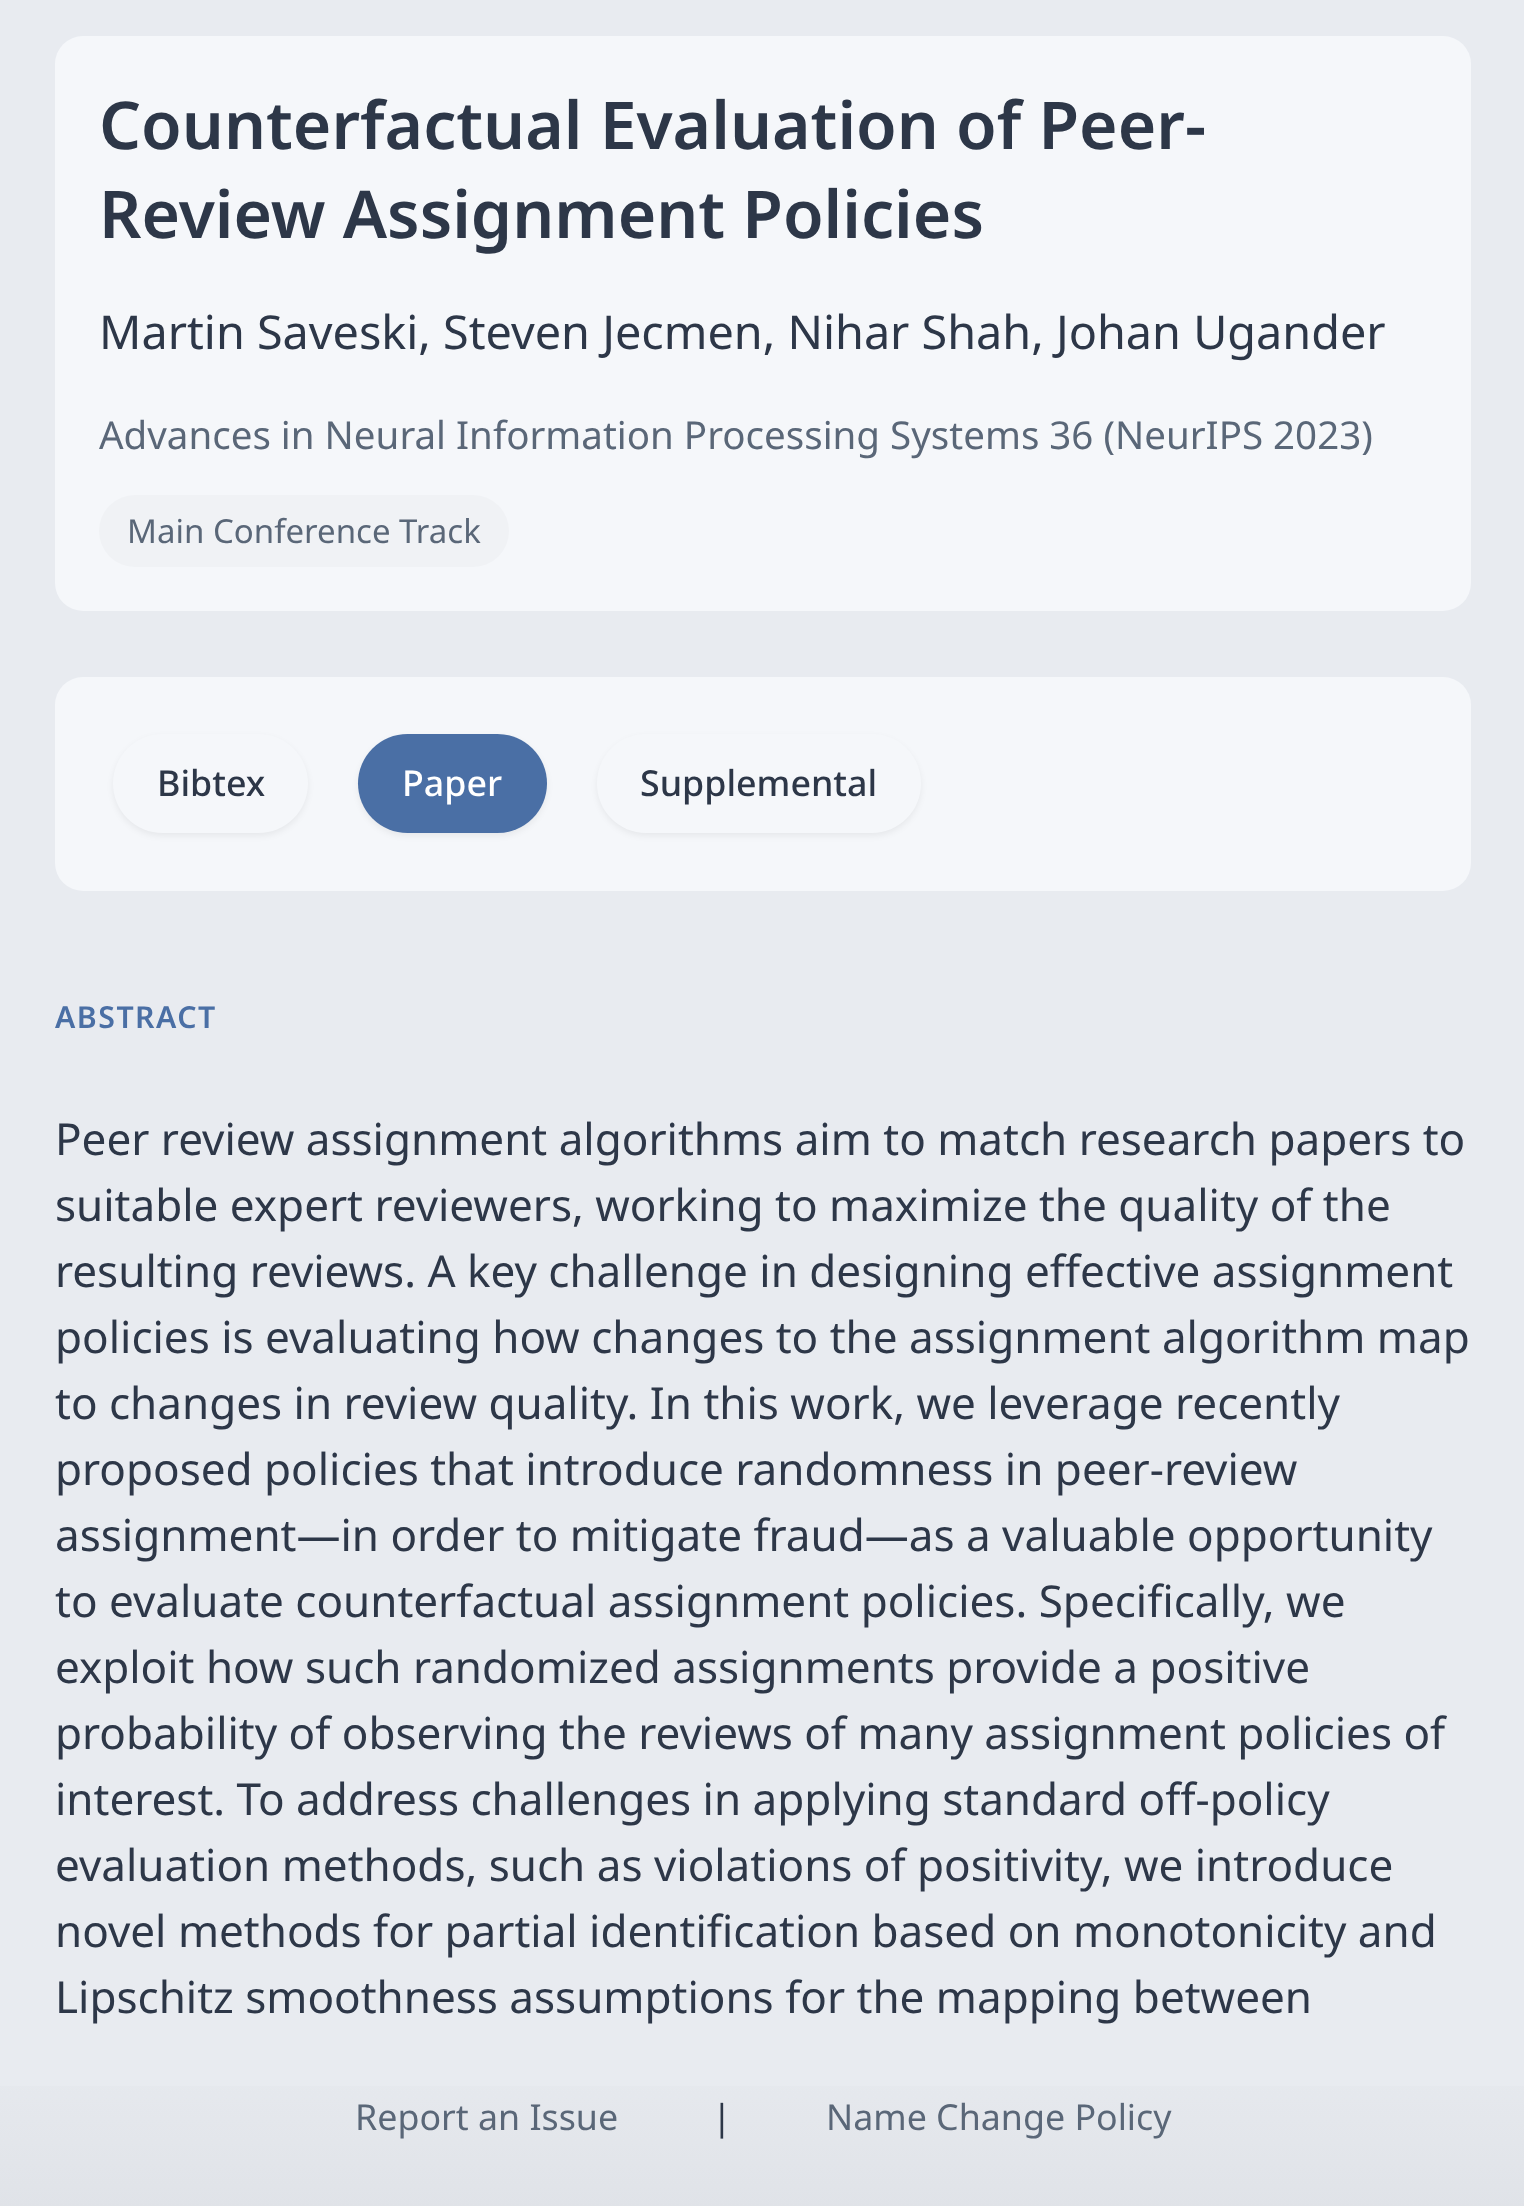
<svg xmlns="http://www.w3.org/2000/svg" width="1524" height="2206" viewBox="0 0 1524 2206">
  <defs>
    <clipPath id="clip1"><path d="M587 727H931V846H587ZM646.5 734H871.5C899 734 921 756 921 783.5C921 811 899 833 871.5 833H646.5C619 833 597 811 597 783.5C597 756 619 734 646.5 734Z" clip-rule="evenodd"/></clipPath>
    <linearGradient id="g1" gradientUnits="userSpaceOnUse" x1="763" y1="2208" x2="763" y2="2030"><stop offset="0" stop-color="#e0e3e8"/><stop offset="1" stop-color="#e8ebf0"/></linearGradient>
  </defs>
  <rect width="100%" height="100%" fill="#e8ebf0"/>
  <rect x="55" y="36" width="1416" height="575" rx="28" fill="#f5f7fa"/>
  <rect x="99" y="495" width="410" height="72" rx="36" fill="#f0f2f5"/>
  <rect x="55" y="677" width="1416" height="214" rx="28" fill="#f5f7fa"/>
  <rect x="113" y="737" width="195" height="99" rx="49.5" fill="#0000000f" filter="blur(3px)"/>
  <rect x="113" y="734" width="195" height="99" rx="49.5" fill="#f5f7fa"/>
  <rect x="358" y="737" width="189" height="99" rx="49.5" fill="#0000000f" filter="blur(3px)"/>
  <rect x="358" y="734" width="189" height="99" rx="49.5" fill="#4a6fa5"/>
  <g clip-path="url(#clip1)">
    <rect x="597" y="737" width="324" height="99" rx="49.5" fill="#0000000f" filter="blur(3px)"/>
  </g>
  <path d="M0 2086h1524v120H0z" fill="url(#g1)"/>
  <g font-family="Noto Sans" font-size="66" font-weight="600" fill="#2d3748">
    <text x="99" y="149">Counterfactual Evaluation of Peer-</text>
    <text x="99" y="238">Review Assignment Policies</text>
  </g>
  <text x="99" y="349" font-family="Noto Sans" font-size="46.75" fill="#2d3748">Martin Saveski, Steven Jecmen, Nihar Shah, Johan Ugander</text>
  <text x="99" y="449" font-family="Noto Sans" font-size="38.5" fill="#5a6778">Advances in Neural Information Processing Systems 36 (NeurIPS 2023)</text>
  <text x="127" y="543" font-family="Noto Sans" font-size="33" fill="#5a6778">Main Conference Track</text>
  <text x="157" y="796" font-family="Noto Sans" font-size="35.75" font-weight="500" fill="#2d3748">Bibtex</text>
  <text x="402" y="796" font-family="Noto Sans" font-size="35.75" font-weight="500" fill="#fff">Paper</text>
  <text x="640" y="796" font-family="Noto Sans" font-size="35.75" font-weight="500" fill="#2d3748">Supplemental</text>
  <text x="55" y="1028" font-family="Noto Sans" font-size="30.25" font-weight="600" letter-spacing="1.5" fill="#4a6fa5">ABSTRACT</text>
  <g font-family="Noto Sans" font-size="44" fill="#2d3748">
    <text x="55" y="1155">Peer review assignment algorithms aim to match research papers to</text>
    <text x="55" y="1221">suitable expert reviewers, working to maximize the quality of the</text>
    <text x="55" y="1287">resulting reviews. A key challenge in designing effective assignment</text>
    <text x="55" y="1353">policies is evaluating how changes to the assignment algorithm map</text>
    <text x="55" y="1419">to changes in review quality. In this work, we leverage recently</text>
    <text x="55" y="1485">proposed policies that introduce randomness in peer-review</text>
    <text x="55" y="1551">assignment—in order to mitigate fraud—as a valuable opportunity</text>
    <text x="55" y="1617">to evaluate counterfactual assignment policies. Specifically, we</text>
    <text x="55" y="1683">exploit how such randomized assignments provide a positive</text>
    <text x="55" y="1749">probability of observing the reviews of many assignment policies of</text>
    <text x="55" y="1815">interest. To address challenges in applying standard off-policy</text>
    <text x="55" y="1881">evaluation methods, such as violations of positivity, we introduce</text>
    <text x="55" y="1947">novel methods for partial identification based on monotonicity and</text>
    <text x="55" y="2013">Lipschitz smoothness assumptions for the mapping between</text>
  </g>
  <text x="355" y="2130" font-family="Noto Sans" font-size="35.75" fill="#5a6778">Report an Issue</text>
  <text x="712" y="2130" font-family="Noto Sans" font-size="35.75" fill="#2d3748">|</text>
  <text x="826" y="2130" font-family="Noto Sans" font-size="35.75" fill="#5a6778">Name Change Policy</text>
</svg>
